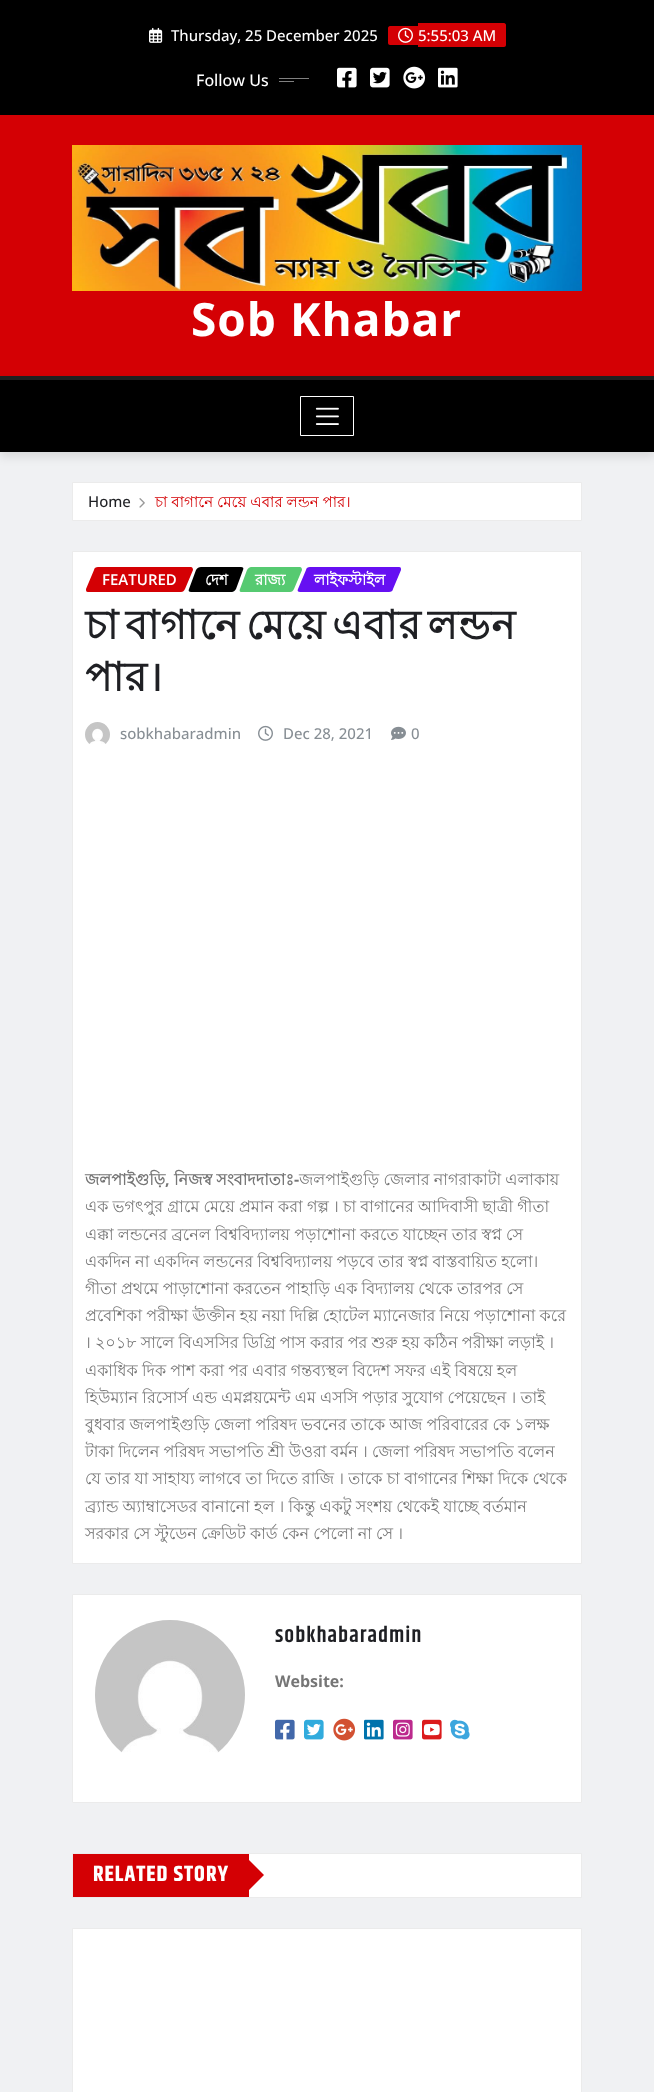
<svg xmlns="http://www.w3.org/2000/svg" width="654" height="2092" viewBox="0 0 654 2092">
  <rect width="100%" height="100%" fill="#f0f1f3"/>
  <path d="M0 0h654v115H0z" fill="#000"/>
  <image x="149" y="27" width="14" height="16" href="img/1.png"/>
  <path d="M390 26H418V45H390C389 45 388 44 388 43V28C388 27 389 26 390 26Z" fill="#d40004"/>
  <image x="398" y="27" width="15" height="16" href="img/2.png"/>
  <path d="M418 23H504C505 23 506 24 506 25V45C506 46 505 47 504 47H418Z" fill="#d40004"/>
  <path d="M279 78h30v1H279z" fill="#808080"/>
  <path d="M279 81h15v1H279z" fill="#808080"/>
  <image x="337" y="67" width="20" height="21" href="img/3.png"/>
  <image x="370" y="67" width="20" height="21" href="img/4.png"/>
  <image x="403" y="66" width="23" height="23" href="img/5.png"/>
  <image x="438" y="67" width="20" height="21" href="img/6.png"/>
  <path d="M0 115h654v261H0z" fill="#d40004"/>
  <image x="72" y="145" width="510" height="146" href="img/7.png"/>
  <path d="M0 381h654v76H0z" fill="#0000001a" filter="blur(5px)"/>
  <path d="M0 380h654v72H0z" fill="#000"/>
  <path d="M0 376h654v4H0z" fill="#202020"/>
  <path d="M300.5 396.5h53v39H300.5z" fill="none" stroke="#fff"/>
  <image x="315" y="407" width="24" height="18" href="img/8.png"/>
  <path d="M72.5 482.5h509v38H72.5z" fill="#fff" stroke="#ebebeb"/>
  <image x="139" y="498" width="6" height="10" href="img/9.png"/>
  <path d="M72.5 551.5h509v1012H72.5z" fill="#fff" stroke="#ebebeb"/>
  <path d="M98 567H191C192 567 193 568 193 570L185 589C184 591 183 592 181 592H88C86 592 86 591 86 589L94 570C94 568 96 567 98 567Z" fill="#d40004"/>
  <path d="M201 567H241C243 567 244 568 243 570L236 589C235 591 233 592 232 592H191C189 592 188 591 189 589L196 570C197 568 199 567 201 567Z" fill="#000"/>
  <path d="M251 567H300C301 567 302 568 302 570L294 589C293 591 292 592 290 592H242C240 592 239 591 240 589L247 570C248 568 250 567 251 567Z" fill="#56ca71"/>
  <path d="M310 567H399C401 567 401 568 401 570L393 589C393 591 391 592 389 592H300C298 592 297 591 298 589L306 570C306 568 308 567 310 567Z" fill="#6610f2"/>
  <image x="85" y="722" width="25" height="22" href="img/10.png"/>
  <image x="258" y="725" width="15" height="16" href="img/11.png"/>
  <image x="391" y="726" width="15" height="14" href="img/12.png"/>
  <rect x="72.5" y="1594.5" width="509" height="208" rx="0.5" fill="#fff" stroke="#ebebeb"/>
  <image x="95" y="1620" width="150" height="133" href="img/13.png"/>
  <image x="275" y="1719" width="20" height="21" href="img/14.png"/>
  <image x="304" y="1719" width="20" height="21" href="img/15.png"/>
  <image x="333" y="1718" width="23" height="23" href="img/16.png"/>
  <image x="364" y="1719" width="20" height="21" href="img/17.png"/>
  <image x="393" y="1719" width="20" height="21" href="img/18.png"/>
  <image x="422" y="1719" width="20" height="21" href="img/19.png"/>
  <image x="450" y="1719" width="20" height="21" href="img/20.png"/>
  <path d="M249 1854h332v43H249z" fill="#fff"/>
  <path d="M72.5 1853.5h509v44H72.5z" fill="none" stroke="#ebebeb"/>
  <path d="M73 1854h176v43H73z" fill="#d40004"/>
  <path d="M249 1890V1860L264 1875Z" fill="#d40004"/>
  <path d="M72.5 1928.5h509v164H72.5z" fill="#fff" stroke="#ebebeb"/>
  <g font-family="Open Sans" font-size="15" font-weight="500" fill="#fff">
    <text x="171" y="41">Thursday, 25 December 2025</text>
    <text x="418" y="41">5:55:03 AM</text>
  </g>
  <text x="196" y="86" font-family="Open Sans" font-size="16" font-weight="500" fill="#fff">Follow Us</text>
  <text x="191" y="336" font-family="Open Sans" font-size="46" font-weight="bold" letter-spacing="1" fill="#fff">Sob Khabar</text>
  <text x="88" y="507" font-family="Open Sans" font-size="15" font-weight="500" fill="#1f2024">Home</text>
  <text x="155" y="507" word-spacing="-0.25" font-family="Lohit Bengali" font-size="15" fill="#d40004">চা বাগানে মেয়ে এবার লন্ডন পার।</text>
  <text x="102" y="585" font-family="Open Sans" font-size="15" font-weight="600" fill="#fff">FEATURED</text>
  <g font-family="Lohit Bengali" font-size="15" font-weight="bold" fill="#fff">
    <text x="205" y="585">দেশ</text>
    <text x="255" y="585">রাজ্য</text>
    <text x="314" y="585">লাইফস্টাইল</text>
  </g>
  <g font-family="Lohit Bengali" font-size="40" font-weight="bold" letter-spacing="1" fill="#1f2024">
    <text x="85" y="639" word-spacing="-6">চা বাগানে মেয়ে এবার লন্ডন</text>
    <text x="85" y="691">পার।</text>
  </g>
  <g font-family="Open Sans" font-size="15" font-weight="500" fill="#878e94">
    <text x="120" y="739">sobkhabaradmin</text>
    <text x="283" y="739">Dec 28, 2021</text>
    <text x="411" y="739">0</text>
  </g>
  <g font-family="Lohit Bengali" font-size="16" font-weight="bold" fill="#767676">
    <text x="85" y="1185">জলপাইগুড়ি</text>
    <text x="174" y="1185" word-spacing="-0.25">নিজস্ব সংবাদদাতাঃ</text>
  </g>
  <text x="294" y="1185" font-family="Open Sans" font-size="16" font-weight="bold" fill="#767676">-</text>
  <text x="299" y="1185" word-spacing="-0.25" font-family="Lohit Bengali" font-size="16" fill="#767676">জলপাইগুড়ি জেলার নাগরাকাটা এলাকায়</text>
  <text x="165" y="1185" font-family="Open Sans" font-size="16" font-weight="bold" fill="#767676">,</text>
  <g font-family="Lohit Bengali" font-size="16" fill="#767676">
    <text x="85" y="1212" word-spacing="-0.25">এক ভগৎপুর গ্ৰামে মেয়ে প্রমান করা গল্প । চা বাগানের আদিবাসী ছাত্রী গীতা</text>
    <text x="85" y="1240" word-spacing="-0.25">এক্কা লন্ডনের ব্রনেল বিশ্ববিদ্যালয় পড়াশোনা করতে যাচ্ছেন তার স্বপ্ন সে</text>
    <text x="85" y="1267" word-spacing="-0.25">একদিন না একদিন লন্ডনের বিশ্ববিদ্যালয় পড়বে তার স্বপ্ন বাস্তবায়িত হলো।</text>
    <text x="85" y="1294" word-spacing="-0.25">গীতা প্রথমে পাড়াশোনা করতেন ‌পাহাড়ি এক বিদ্যালয় থেকে তারপর সে</text>
    <text x="85" y="1321" word-spacing="-0.25">প্রবেশিকা পরীক্ষা ঊক্তীন হয় নয়া দিল্লি হোটেল ম্যানেজার নিয়ে পড়াশোনা করে</text>
    <text x="85" y="1348" word-spacing="-0.25">। ২০১৮ সালে বিএসসির ডিগ্ৰি পাস করার পর শুরু হয় কঠিন পরীক্ষা লড়াই ।</text>
    <text x="85" y="1376" word-spacing="-0.25">একাধিক দিক পাশ করা পর এবার গন্তব্যস্থল বিদেশ সফর এই বিষয়ে হল</text>
    <text x="85" y="1403" word-spacing="-0.25">হিউম্যান রিসোর্স এন্ড এমপ্লয়মেন্ট এম এসসি পড়ার সুযোগ পেয়েছেন ‌। তাই</text>
    <text x="85" y="1430" word-spacing="-0.25">বুধবার জলপাইগুড়ি জেলা পরিষদ ভবনের তাকে আজ পরিবারের কে ১লক্ষ</text>
    <text x="85" y="1457" word-spacing="-0.25">টাকা দিলেন পরিষদ সভাপতি শ্রী উওরা বর্মন । জেলা পরিষদ সভাপতি বলেন</text>
    <text x="85" y="1484" word-spacing="-0.25">যে তার যা সাহায্য লাগবে তা দিতে রাজি ‌‌। তাকে চা বাগানের শিক্ষা দিকে থেকে</text>
    <text x="85" y="1512" word-spacing="-0.25">ব্র্যান্ড অ্যাম্বাসেডর বানানো হল । কিন্তু একটু সংশয় থেকেই যাচ্ছে বর্তমান</text>
    <text x="85" y="1539" word-spacing="-0.25">সরকার সে স্টুডেন ক্রেডিট কার্ড কেন পেলো না সে ।</text>
  </g>
  <text x="275" y="1642" font-family="Khand" font-size="22" font-weight="600" letter-spacing="1" fill="#1f2024">sobkhabaradmin</text>
  <text x="275" y="1687" font-family="Open Sans" font-size="16" font-weight="bold" fill="#767676">Website:</text>
  <text x="93" y="1881" font-family="Khand" font-size="22" font-weight="bold" letter-spacing="1" fill="#fff">RELATED STORY</text>
</svg>
